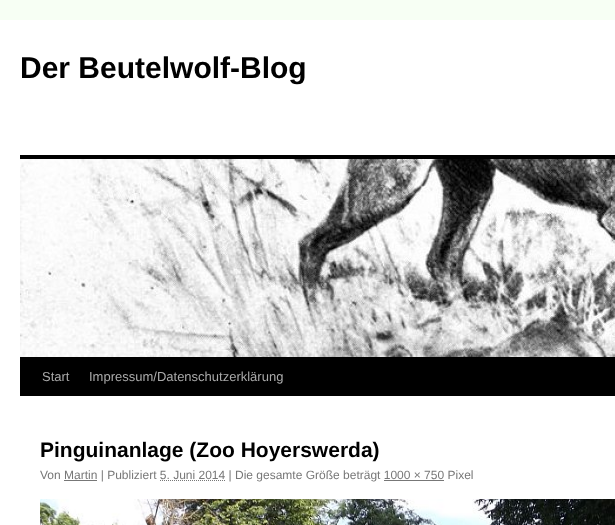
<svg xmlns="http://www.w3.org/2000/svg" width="615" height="525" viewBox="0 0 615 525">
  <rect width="100%" height="100%" fill="#f7fff4"/>
  <path d="M0 20h615v505H0z" fill="#fff"/>
  <path d="M20 155h595v4H20z" fill="#000"/>
  <path d="M20 357h595v39H20z" fill="#000"/>
  <image x="20" y="159" width="595" height="198" href="img/1.png"/>
  <path d="M64 480h33v1H64z" fill="#777"/>
  <path d="M160 480.5H225.5" fill="none" stroke="#777" stroke-dasharray="1 1"/>
  <path d="M384 480h60v1H384z" fill="#777"/>
  <image x="40" y="499" width="575" height="26" href="img/2.png"/>
  <text x="20" y="78" font-family="Liberation Sans" font-size="30" font-weight="bold" fill="#000">Der Beutelwolf-Blog</text>
  <g font-family="Liberation Sans" font-size="13" fill="#aaa">
    <text x="42" y="381">Start</text>
    <text x="89" y="381">Impressum/Datenschutzerklärung</text>
  </g>
  <text x="40" y="457" font-family="Liberation Sans" font-size="21" font-weight="bold" fill="#000">Pinguinanlage (Zoo Hoyerswerda)</text>
  <text x="40" y="479" font-family="Liberation Sans" font-size="12" fill="#777">Von Martin | Publiziert 5. Juni 2014 | Die gesamte Größe beträgt 1000 × 750 Pixel</text>
</svg>
